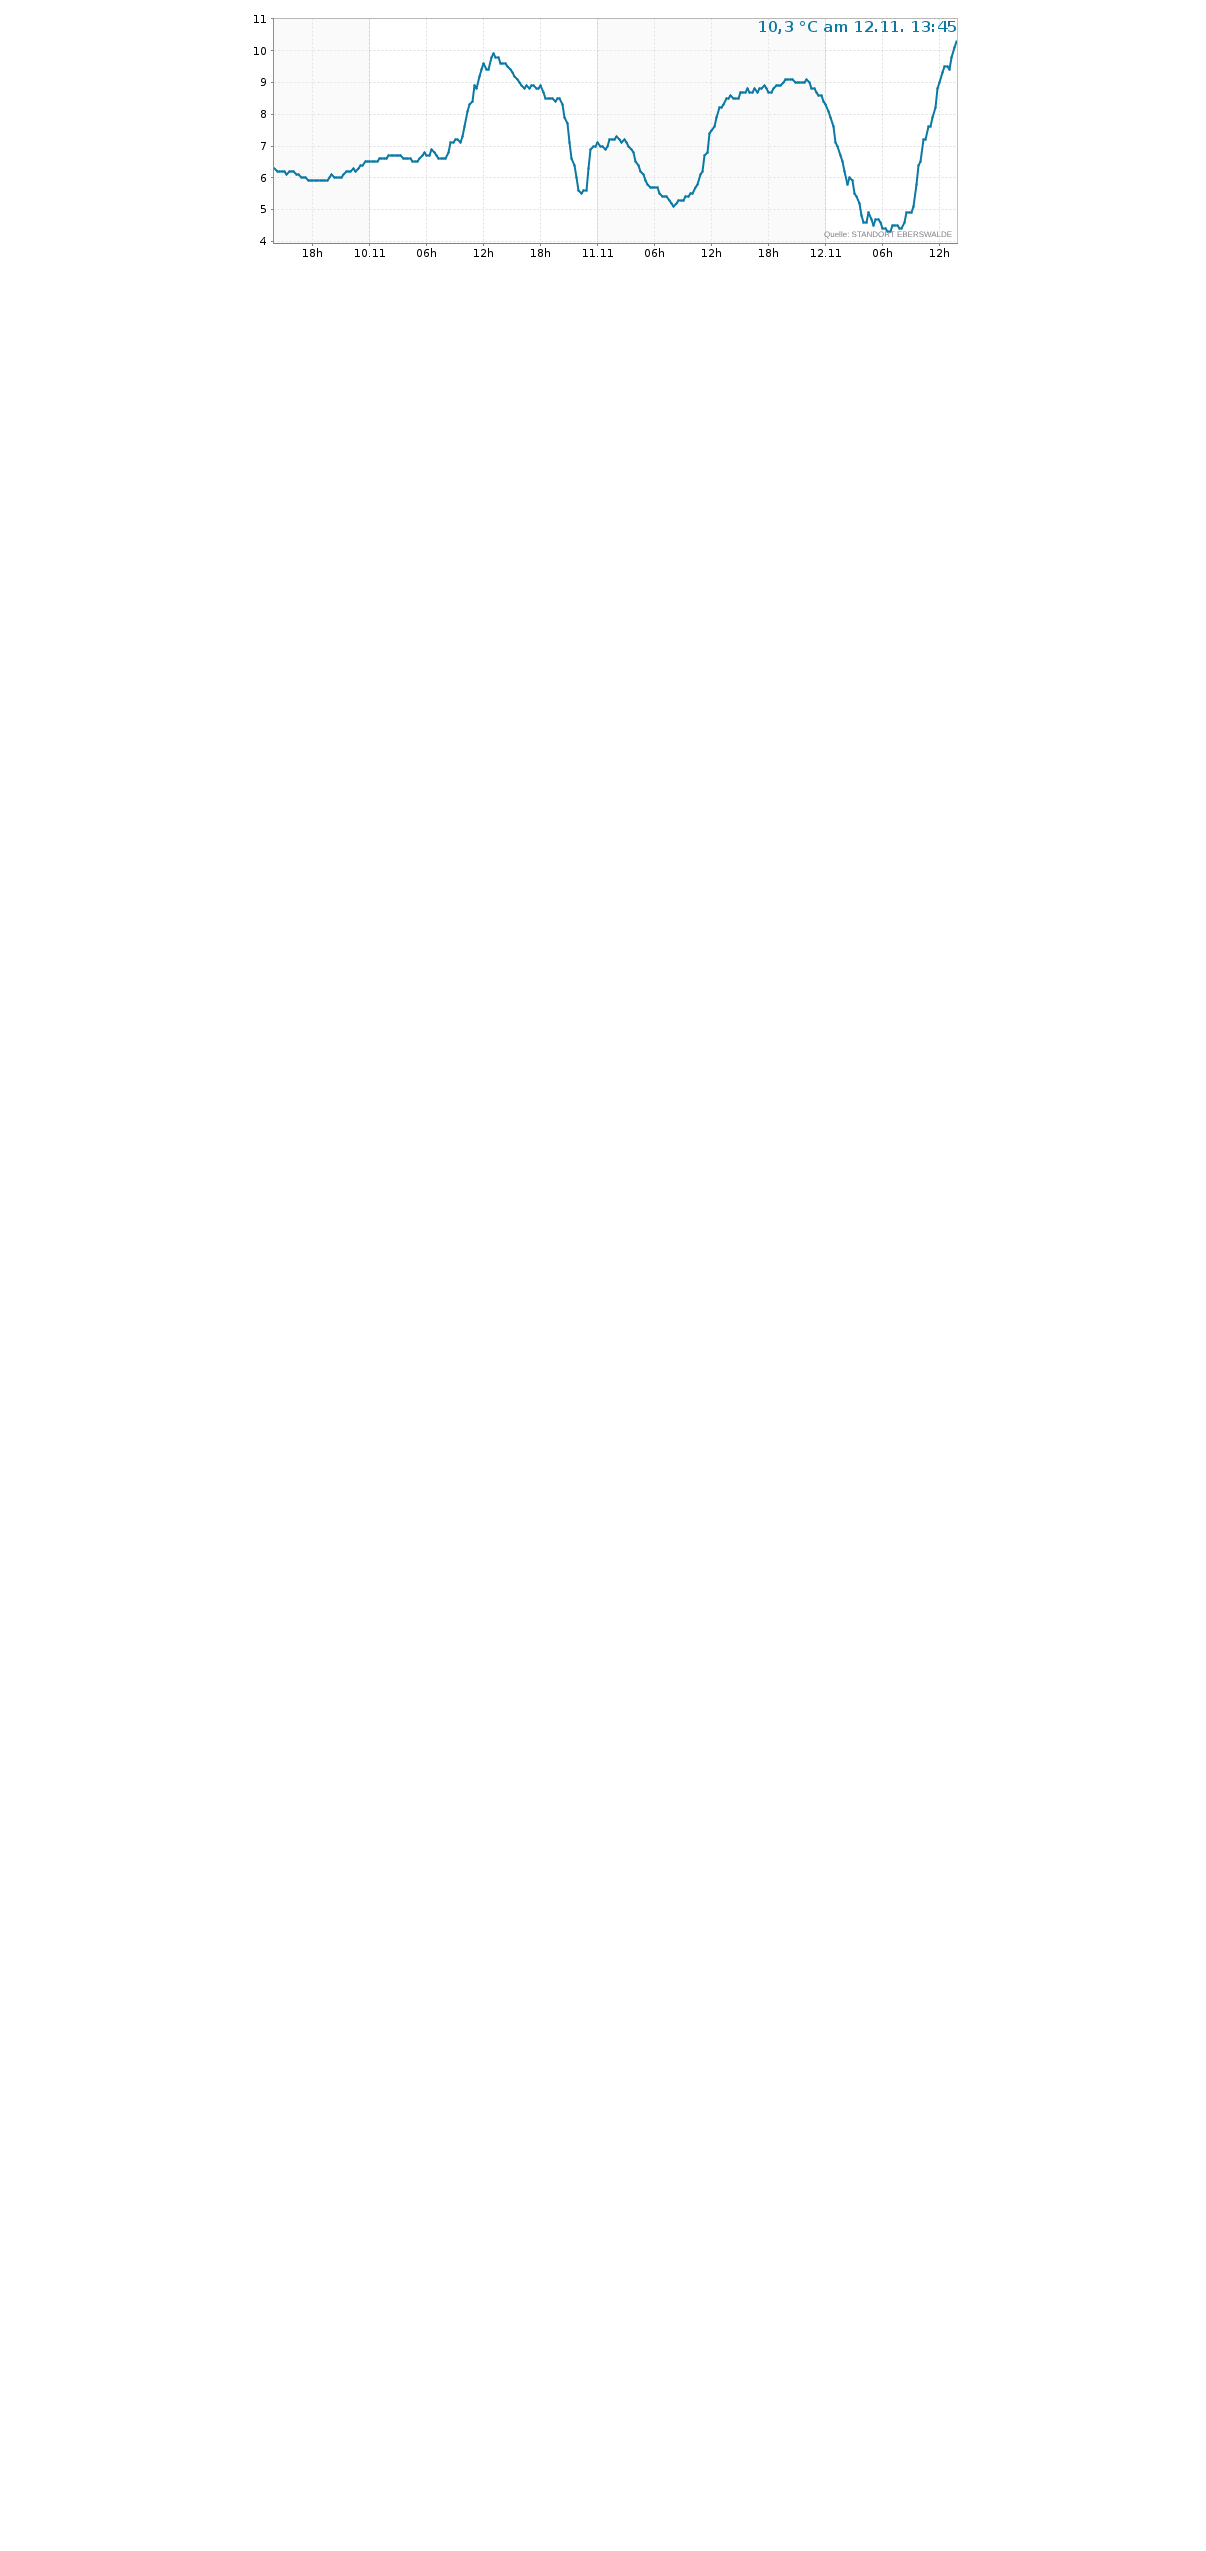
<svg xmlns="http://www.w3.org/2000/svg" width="1206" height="2551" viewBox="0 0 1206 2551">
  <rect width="100%" height="100%" fill="#fff"/>
  <image x="254" y="15" width="704" height="242" href="img/1.png"/>
  <text x="824" y="237" font-family="Liberation Sans" font-size="8" fill="#82828c">Quelle: STANDORT EBERSWALDE</text>
</svg>
